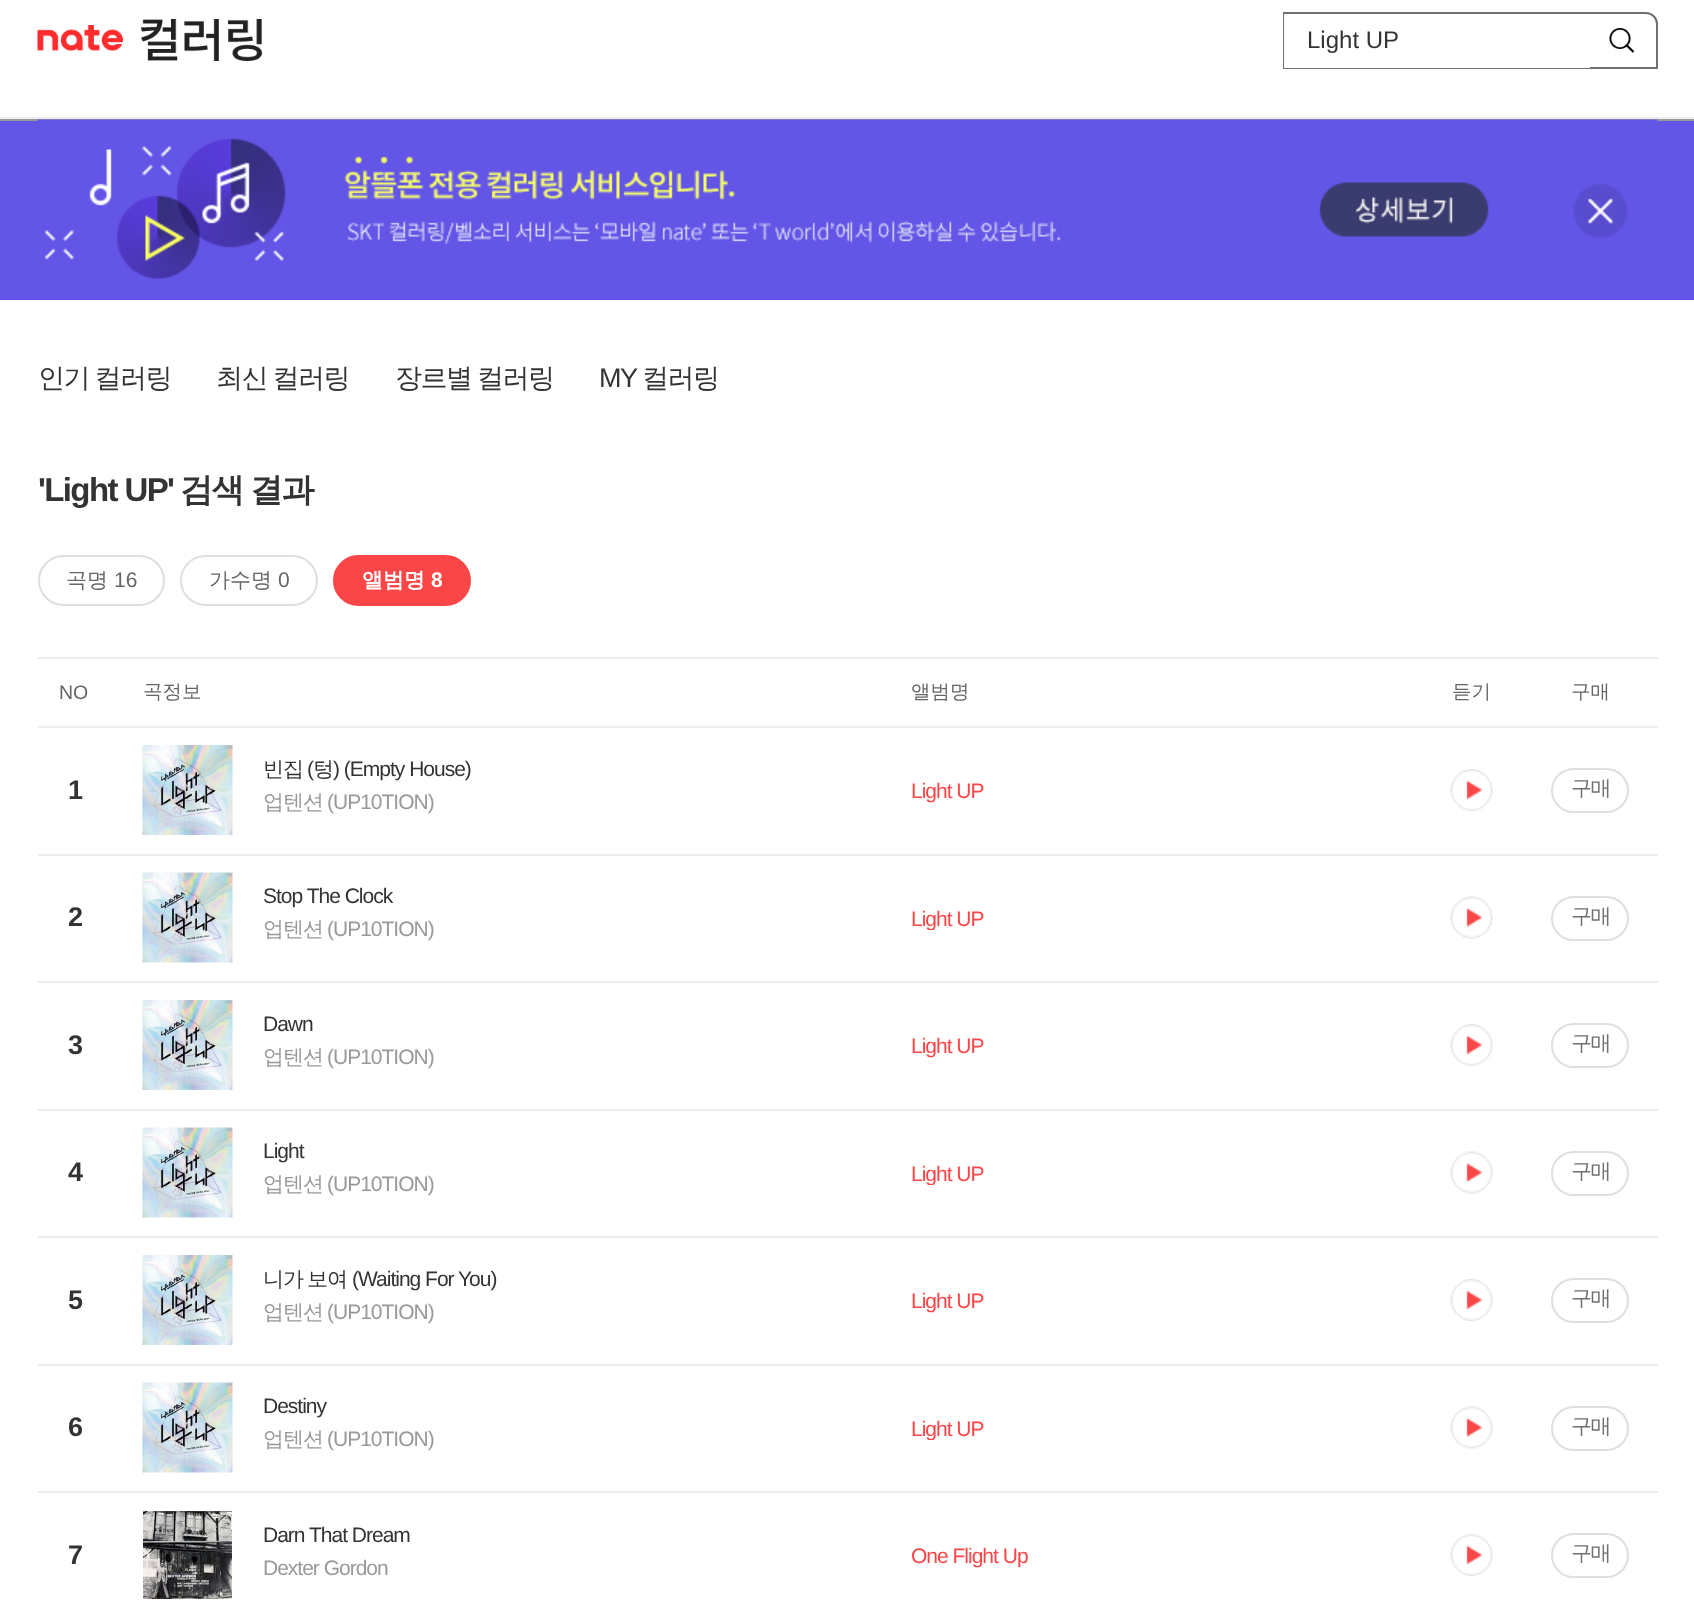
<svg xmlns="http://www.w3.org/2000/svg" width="1694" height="1614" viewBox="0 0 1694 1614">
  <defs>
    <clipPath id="clip1"><path d="M911 906h495v24H911z"/></clipPath>
    <clipPath id="clip2"><path d="M911 1161h495v24H911z"/></clipPath>
    <clipPath id="clip3"><path d="M911 1416h495v24H911z"/></clipPath>
  </defs>
  <rect width="100%" height="100%" fill="#fff"/>
  <path d="M0 117h1694v2H0z" fill="#eee"/>
  <image x="37" y="25" width="86" height="26" href="img/1.png"/>
  <image x="141" y="19" width="122" height="42" href="img/2.png"/>
  <path d="M1284 13H1646C1652 13 1657 18 1657 24V68H1284Z" fill="none" stroke="#707070" stroke-width="2"/>
  <path d="M1284 14h306v54H1284z" fill="#fff"/>
  <image x="1609" y="28" width="26" height="25" href="img/3.png"/>
  <path d="M0 119h1694v2H0z" fill="#999"/>
  <path d="M0 121h1694v179H0z" fill="#6356e6"/>
  <image x="37" y="119" width="1621" height="160" href="img/4.png"/>
  <image x="1573" y="184" width="55" height="54" href="img/5.png"/>
  <rect x="39" y="556" width="125" height="49" rx="24.5" fill="none" stroke="#dfdfdf" stroke-width="2"/>
  <rect x="181" y="556" width="136" height="49" rx="24.5" fill="none" stroke="#dfdfdf" stroke-width="2"/>
  <rect x="334" y="556" width="136" height="49" rx="24.5" fill="#fa4647" stroke="#fa4647" stroke-width="2"/>
  <path d="M38 657h1620v2H38z" fill="#eee"/>
  <path d="M38 726h1620v2H38z" fill="#eee"/>
  <path d="M38 854h1620v2H38z" fill="#ededed"/>
  <image x="142" y="745" width="91" height="90" href="img/6.png"/>
  <image x="1450" y="769" width="43" height="42" href="img/7.png"/>
  <rect x="1552" y="769" width="76" height="43" rx="21.5" fill="none" stroke="#dfdfdf" stroke-width="2"/>
  <path d="M38 981h1620v2H38z" fill="#ededed"/>
  <image x="142" y="872" width="91" height="91" href="img/8.png"/>
  <image x="1450" y="896" width="43" height="43" href="img/9.png"/>
  <rect x="1552" y="897" width="76" height="43" rx="21.5" fill="none" stroke="#dfdfdf" stroke-width="2"/>
  <path d="M38 1109h1620v2H38z" fill="#ededed"/>
  <image x="142" y="1000" width="91" height="90" href="img/6.png"/>
  <image x="1450" y="1024" width="43" height="42" href="img/7.png"/>
  <rect x="1552" y="1024" width="76" height="43" rx="21.5" fill="none" stroke="#dfdfdf" stroke-width="2"/>
  <path d="M38 1236h1620v2H38z" fill="#ededed"/>
  <image x="142" y="1127" width="91" height="91" href="img/8.png"/>
  <image x="1450" y="1151" width="43" height="43" href="img/9.png"/>
  <rect x="1552" y="1152" width="76" height="43" rx="21.5" fill="none" stroke="#dfdfdf" stroke-width="2"/>
  <path d="M38 1364h1620v2H38z" fill="#ededed"/>
  <image x="142" y="1255" width="91" height="90" href="img/6.png"/>
  <image x="1450" y="1279" width="43" height="42" href="img/7.png"/>
  <rect x="1552" y="1279" width="76" height="43" rx="21.5" fill="none" stroke="#dfdfdf" stroke-width="2"/>
  <path d="M38 1491h1620v2H38z" fill="#ededed"/>
  <image x="142" y="1382" width="91" height="91" href="img/8.png"/>
  <image x="1450" y="1406" width="43" height="43" href="img/9.png"/>
  <rect x="1552" y="1407" width="76" height="43" rx="21.5" fill="none" stroke="#dfdfdf" stroke-width="2"/>
  <image x="143" y="1511" width="89" height="88" href="img/10.png"/>
  <image x="1450" y="1534" width="43" height="42" href="img/7.png"/>
  <rect x="1552" y="1534" width="76" height="43" rx="21.5" fill="none" stroke="#dfdfdf" stroke-width="2"/>
  <text x="1307" y="48" font-family="Liberation Sans" font-size="24" fill="#333">Light UP</text>
  <g font-family="WenQuanYi Zen Hei" font-size="27" font-weight="500" letter-spacing="-1.5" fill="#333">
    <text x="38" y="387" word-spacing="-1">인기 컬러링</text>
    <text x="216" y="387" word-spacing="-1">최신 컬러링</text>
    <text x="395" y="387" word-spacing="-1">장르별 컬러링</text>
  </g>
  <text x="599" y="387" font-family="Liberation Sans" font-size="27" letter-spacing="-1.5" fill="#333">MY</text>
  <text x="642" y="387" font-family="WenQuanYi Zen Hei" font-size="27" font-weight="500" letter-spacing="-1.5" fill="#333">컬러링</text>
  <text x="38" y="501" font-family="Liberation Sans" font-size="33" font-weight="bold" letter-spacing="-1.6" fill="#333">'Light UP'</text>
  <g font-family="WenQuanYi Zen Hei" font-size="33" font-weight="bold" letter-spacing="-1.6" fill="#333">
    <text x="180" y="501">검색</text>
    <text x="250" y="501">결과</text>
  </g>
  <text x="66" y="587" font-family="WenQuanYi Zen Hei" font-size="21" font-weight="500" fill="#666">곡명</text>
  <text x="114" y="587" font-family="Liberation Sans" font-size="21" fill="#666">16</text>
  <text x="209" y="587" font-family="WenQuanYi Zen Hei" font-size="21" font-weight="500" fill="#666">가수명</text>
  <text x="278" y="587" font-family="Liberation Sans" font-size="21" fill="#666">0</text>
  <text x="362" y="587" font-family="WenQuanYi Zen Hei" font-size="21" font-weight="bold" fill="#fff">앨범명</text>
  <text x="431" y="587" font-family="Liberation Sans" font-size="21" font-weight="bold" fill="#fff">8</text>
  <text x="59" y="699" font-family="Liberation Sans" font-size="19.5" fill="#666">NO</text>
  <g font-family="WenQuanYi Zen Hei" font-size="19.5" font-weight="500" fill="#666">
    <text x="143" y="698">곡정보</text>
    <text x="911" y="698">앨범명</text>
    <text x="1452" y="698">듣기</text>
    <text x="1571" y="698">구매</text>
  </g>
  <text x="68" y="799" font-family="Liberation Sans" font-size="27" font-weight="bold" letter-spacing="-1.5" fill="#333">1</text>
  <text x="263" y="776" font-family="WenQuanYi Zen Hei" font-size="21" font-weight="500" letter-spacing="-1" fill="#333">빈집</text>
  <text x="307" y="776" font-family="Liberation Sans" font-size="21" letter-spacing="-1" fill="#333">(</text>
  <text x="313" y="776" font-family="WenQuanYi Zen Hei" font-size="21" font-weight="500" letter-spacing="-1" fill="#333">텅</text>
  <text x="333" y="776" font-family="Liberation Sans" font-size="21" letter-spacing="-1" fill="#333">) (Empty House)</text>
  <text x="263" y="809" font-family="WenQuanYi Zen Hei" font-size="21" font-weight="500" letter-spacing="-1" fill="#999">업텐션</text>
  <text x="327" y="809" font-family="Liberation Sans" font-size="21" letter-spacing="-1" fill="#999">(UP10TION)</text>
  <text x="911" y="798" font-family="Liberation Sans" font-size="21" letter-spacing="-1" fill="#fa4647">Light UP</text>
  <text x="1571" y="795" font-family="WenQuanYi Zen Hei" font-size="21" font-weight="500" letter-spacing="-1.5" fill="#707070">구매</text>
  <text x="68" y="926" font-family="Liberation Sans" font-size="27" font-weight="bold" letter-spacing="-1.5" fill="#333">2</text>
  <text x="263" y="903" font-family="Liberation Sans" font-size="21" letter-spacing="-1" fill="#333">Stop The Clock</text>
  <text x="263" y="936" font-family="WenQuanYi Zen Hei" font-size="21" font-weight="500" letter-spacing="-1" fill="#999">업텐션</text>
  <text x="327" y="936" font-family="Liberation Sans" font-size="21" letter-spacing="-1" fill="#999">(UP10TION)</text>
  <g clip-path="url(#clip1)">
    <text x="911" y="926" font-family="Liberation Sans" font-size="21" letter-spacing="-1" fill="#fa4647">Light UP</text>
  </g>
  <text x="1571" y="923" font-family="WenQuanYi Zen Hei" font-size="21" font-weight="500" letter-spacing="-1.5" fill="#707070">구매</text>
  <text x="68" y="1054" font-family="Liberation Sans" font-size="27" font-weight="bold" letter-spacing="-1.5" fill="#333">3</text>
  <text x="263" y="1031" font-family="Liberation Sans" font-size="21" letter-spacing="-1" fill="#333">Dawn</text>
  <text x="263" y="1064" font-family="WenQuanYi Zen Hei" font-size="21" font-weight="500" letter-spacing="-1" fill="#999">업텐션</text>
  <text x="327" y="1064" font-family="Liberation Sans" font-size="21" letter-spacing="-1" fill="#999">(UP10TION)</text>
  <text x="911" y="1053" font-family="Liberation Sans" font-size="21" letter-spacing="-1" fill="#fa4647">Light UP</text>
  <text x="1571" y="1050" font-family="WenQuanYi Zen Hei" font-size="21" font-weight="500" letter-spacing="-1.5" fill="#707070">구매</text>
  <text x="68" y="1181" font-family="Liberation Sans" font-size="27" font-weight="bold" letter-spacing="-1.5" fill="#333">4</text>
  <text x="263" y="1158" font-family="Liberation Sans" font-size="21" letter-spacing="-1" fill="#333">Light</text>
  <text x="263" y="1191" font-family="WenQuanYi Zen Hei" font-size="21" font-weight="500" letter-spacing="-1" fill="#999">업텐션</text>
  <text x="327" y="1191" font-family="Liberation Sans" font-size="21" letter-spacing="-1" fill="#999">(UP10TION)</text>
  <g clip-path="url(#clip2)">
    <text x="911" y="1181" font-family="Liberation Sans" font-size="21" letter-spacing="-1" fill="#fa4647">Light UP</text>
  </g>
  <text x="1571" y="1178" font-family="WenQuanYi Zen Hei" font-size="21" font-weight="500" letter-spacing="-1.5" fill="#707070">구매</text>
  <text x="68" y="1309" font-family="Liberation Sans" font-size="27" font-weight="bold" letter-spacing="-1.5" fill="#333">5</text>
  <g font-family="WenQuanYi Zen Hei" font-size="21" font-weight="500" letter-spacing="-1" fill="#333">
    <text x="263" y="1286">니가</text>
    <text x="307" y="1286">보여</text>
  </g>
  <text x="352" y="1286" font-family="Liberation Sans" font-size="21" letter-spacing="-1" fill="#333">(Waiting For You)</text>
  <text x="263" y="1319" font-family="WenQuanYi Zen Hei" font-size="21" font-weight="500" letter-spacing="-1" fill="#999">업텐션</text>
  <text x="327" y="1319" font-family="Liberation Sans" font-size="21" letter-spacing="-1" fill="#999">(UP10TION)</text>
  <text x="911" y="1308" font-family="Liberation Sans" font-size="21" letter-spacing="-1" fill="#fa4647">Light UP</text>
  <text x="1571" y="1305" font-family="WenQuanYi Zen Hei" font-size="21" font-weight="500" letter-spacing="-1.5" fill="#707070">구매</text>
  <text x="68" y="1436" font-family="Liberation Sans" font-size="27" font-weight="bold" letter-spacing="-1.5" fill="#333">6</text>
  <text x="263" y="1413" font-family="Liberation Sans" font-size="21" letter-spacing="-1" fill="#333">Destiny</text>
  <text x="263" y="1446" font-family="WenQuanYi Zen Hei" font-size="21" font-weight="500" letter-spacing="-1" fill="#999">업텐션</text>
  <text x="327" y="1446" font-family="Liberation Sans" font-size="21" letter-spacing="-1" fill="#999">(UP10TION)</text>
  <g clip-path="url(#clip3)">
    <text x="911" y="1436" font-family="Liberation Sans" font-size="21" letter-spacing="-1" fill="#fa4647">Light UP</text>
  </g>
  <text x="1571" y="1433" font-family="WenQuanYi Zen Hei" font-size="21" font-weight="500" letter-spacing="-1.5" fill="#707070">구매</text>
  <text x="68" y="1564" font-family="Liberation Sans" font-size="27" font-weight="bold" letter-spacing="-1.5" fill="#333">7</text>
  <text x="263" y="1542" font-family="Liberation Sans" font-size="21" letter-spacing="-1" fill="#333">Darn That Dream</text>
  <text x="263" y="1575" font-family="Liberation Sans" font-size="21" letter-spacing="-1" fill="#999">Dexter Gordon</text>
  <text x="911" y="1563" font-family="Liberation Sans" font-size="21" letter-spacing="-1" fill="#fa4647">One Flight Up</text>
  <text x="1571" y="1560" font-family="WenQuanYi Zen Hei" font-size="21" font-weight="500" letter-spacing="-1.5" fill="#707070">구매</text>
</svg>
